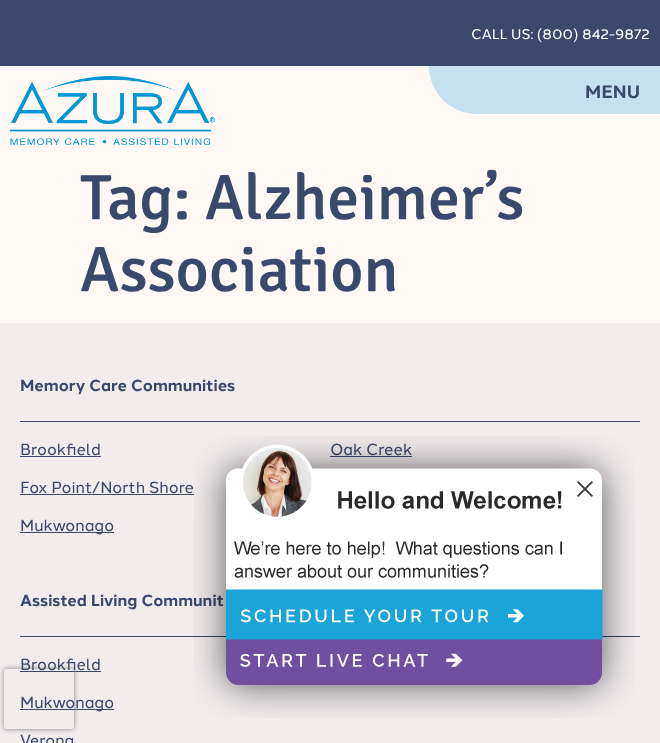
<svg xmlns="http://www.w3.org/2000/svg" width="660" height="743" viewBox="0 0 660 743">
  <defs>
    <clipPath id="clip1"><path d="M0 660H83V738H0ZM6 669H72C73 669 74 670 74 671V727C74 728 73 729 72 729H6C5 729 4 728 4 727V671C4 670 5 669 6 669Z" clip-rule="evenodd"/></clipPath>
  </defs>
  <rect width="100%" height="100%" fill="#fff9f6"/>
  <path d="M0 0h660v66H0z" fill="#39486b"/>
  <image x="10" y="76" width="205" height="69" href="img/1.png"/>
  <path d="M429 66H660V114H477C450.5 114 429 92.5 429 66Z" fill="#c5e1ef"/>
  <path d="M0 323h660v420H0z" fill="#f2eced"/>
  <path d="M20 421h620v1H20z" fill="#39486b"/>
  <path d="M20 456h81v1H20z" fill="#39486b"/>
  <path d="M20 494h174v1H20z" fill="#39486b"/>
  <path d="M20 532h94v1H20z" fill="#39486b"/>
  <path d="M330 456h82v1H330z" fill="#39486b"/>
  <path d="M20 636h620v1H20z" fill="#39486b"/>
  <path d="M20 671h81v1H20z" fill="#39486b"/>
  <path d="M20 709h94v1H20z" fill="#39486b"/>
  <g clip-path="url(#clip1)">
    <rect x="4" y="669" width="70" height="60" rx="2" fill="#808080" filter="blur(2.5px)"/>
  </g>
  <text x="471" y="39" font-family="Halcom" font-size="14" fill="#fff">CALL US: (800) 842-9872</text>
  <text x="585" y="98" font-family="Halcom" font-size="18" font-weight="bold" fill="#39486b">MENU</text>
  <g font-family="Signika" font-size="64" font-weight="500" fill="#39486b">
    <text x="80" y="219">Tag: Alzheimer’s</text>
    <text x="80" y="291">Association</text>
  </g>
  <text x="20" y="391" font-family="Halcom" font-size="16" font-weight="bold" fill="#39486b">Memory Care Communities</text>
  <g font-family="Halcom" font-size="16" fill="#39486b">
    <text x="20" y="455">Brookfield</text>
    <text x="20" y="493">Fox Point/North Shore</text>
    <text x="20" y="531">Mukwonago</text>
    <text x="330" y="455">Oak Creek</text>
  </g>
  <text x="20" y="606" font-family="Halcom" font-size="16" font-weight="bold" fill="#39486b">Assisted Living Communit</text>
  <g font-family="Halcom" font-size="16" fill="#39486b">
    <text x="20" y="670">Brookfield</text>
    <text x="20" y="708">Mukwonago</text>
    <text x="20" y="746">Verona</text>
  </g>
  <image x="193" y="436" width="442" height="282" href="img/2.png"/>
  <image x="577" y="481" width="16" height="16" href="img/3.png"/>
</svg>
